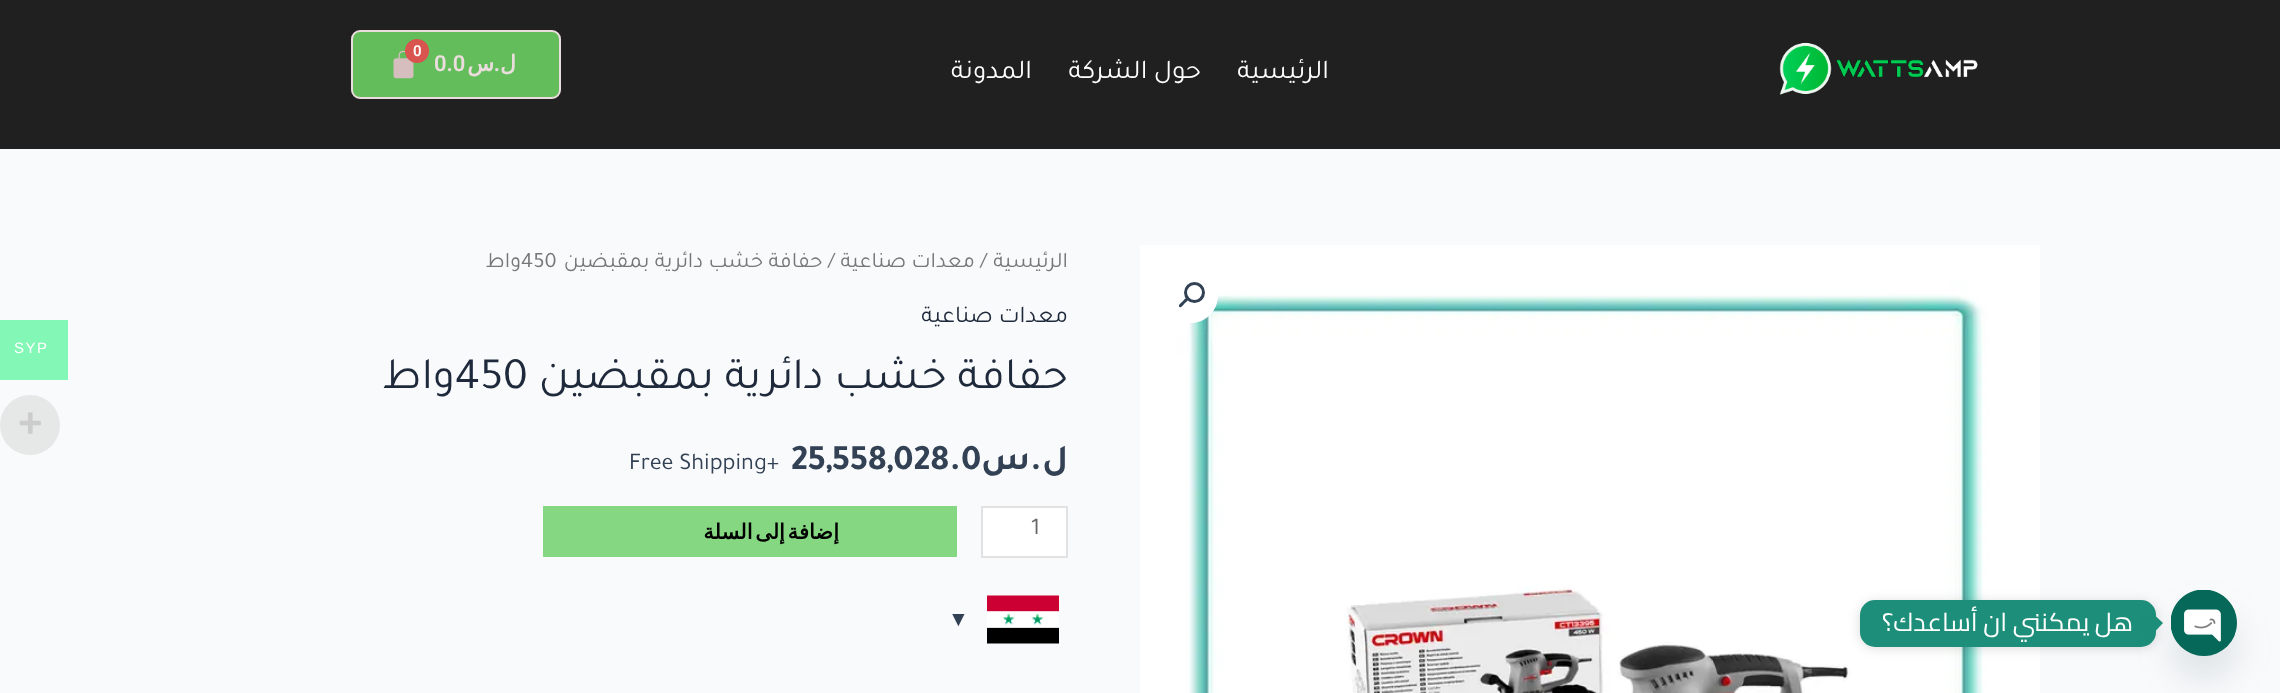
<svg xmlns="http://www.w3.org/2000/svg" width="2280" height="693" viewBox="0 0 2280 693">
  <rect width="100%" height="100%" fill="#f9fafb"/>
  <path d="M0 0h2280v149H0z" fill="#202020"/>
  <image x="1779" y="42" width="199" height="53" href="img/1.png"/>
  <rect x="352" y="31" width="208" height="67" rx="8" fill="#62bd5a" stroke="#ebdddd" stroke-width="2"/>
  <image x="393" y="50" width="21" height="29" href="img/2.png"/>
  <circle cx="417" cy="51" r="12" fill="#d9534f"/>
  <image x="1140" y="245" width="900" height="448" href="img/3.png"/>
  <circle cx="1191" cy="296" r="27" fill="#fff"/>
  <circle cx="1194.5" cy="292.5" r="9" fill="none" stroke="#334155" stroke-width="3"/>
  <path d="M1187.5 298.5C1189.5 300 1185.5 302.5 1184.5 303.5C1183.5 304.5 1181 308.5 1179.5 307C1177.5 305 1181.5 302.5 1182.5 301.5C1183.5 300.5 1186 296.5 1187.5 298.5Z" fill="#334155"/>
  <path d="M982 507h85v50H982z" fill="#fff" stroke="#e2e2e2" stroke-width="2"/>
  <path d="M543 506h414v51H543z" fill="#85d881"/>
  <image x="987" y="595" width="72" height="49" href="img/4.png"/>
  <path d="M0 320h68v60H0z" fill="#82f7b6"/>
  <circle cx="30" cy="425" r="30" fill="#e6e7e7"/>
  <rect x="1860" y="602" width="296" height="46" rx="15" fill="#00000026" filter="blur(6px)"/>
  <rect x="1860" y="600" width="296" height="47" rx="15" fill="#1c8e79"/>
  <path d="M2155.5 631V616L2163 623Z" fill="#1c8e79"/>
  <rect x="2171" y="614" width="66" height="66" rx="33" fill="#49687e29" filter="blur(18px)"/>
  <circle cx="2204" cy="623" r="33" fill="#066858"/>
  <image x="2171" y="590" width="66" height="66" href="img/5.png"/>
  <g font-family="Tajawal" font-size="27" direction="rtl" fill="#fff">
    <text x="1329" y="78">الرئيسية</text>
    <text x="1201" y="78">حول الشركة</text>
    <text x="1032" y="78">المدونة</text>
  </g>
  <text x="413" y="56" font-family="Roboto" font-size="15" font-weight="600" fill="#fff">0</text>
  <text x="516" y="71" font-family="DejaVu Sans" font-size="22" font-weight="bold" direction="rtl" fill="#ebdddd">ل</text>
  <text x="500" y="71" font-family="Roboto" font-size="22" font-weight="600" direction="rtl" fill="#ebdddd">.</text>
  <text x="494" y="71" font-family="DejaVu Sans" font-size="22" font-weight="bold" direction="rtl" fill="#ebdddd">س</text>
  <text x="434" y="71" font-family="Roboto" font-size="22" font-weight="600" fill="#ebdddd">0.0</text>
  <text x="1068" y="267" font-family="Tajawal" font-size="22" direction="rtl" fill="#777">الرئيسية</text>
  <text x="980" y="267" font-family="Tajawal" font-size="22" fill="#777">/</text>
  <g font-family="Tajawal" font-size="22" direction="rtl" fill="#777">
    <text x="975" y="267">معدات صناعية</text>
    <text x="835" y="267">/ حفافة خشب دائرية بمقبضين</text>
  </g>
  <text x="521" y="267" font-family="Tajawal" font-size="22" fill="#777">450</text>
  <text x="521" y="267" font-family="Tajawal" font-size="22" direction="rtl" fill="#777">واط</text>
  <text x="1068" y="322" font-family="Tajawal" font-size="24" direction="rtl" fill="#1e293b">معدات صناعية</text>
  <text x="1068" y="388" font-family="Tajawal" font-size="45" direction="rtl" fill="#1e293b">حفافة خشب دائرية بمقبضين</text>
  <text x="455" y="388" font-family="Tajawal" font-size="45" fill="#1e293b">450</text>
  <text x="455" y="388" font-family="Tajawal" font-size="45" direction="rtl" fill="#1e293b">واط</text>
  <text x="1068" y="469" font-family="Tajawal" font-size="36" font-weight="bold" direction="rtl" fill="#334155">ل.س</text>
  <text x="791" y="469" font-family="Tajawal" font-size="36" font-weight="bold" fill="#334155">25,558,028.0</text>
  <text x="629" y="469" font-family="Tajawal" font-size="24" fill="#334155">Free Shipping+</text>
  <text x="1031" y="534" font-family="Tajawal" font-size="24" fill="#666">1</text>
  <text x="839" y="539" word-spacing="-4" font-family="DejaVu Sans" font-size="21" font-weight="bold" letter-spacing="1.5" direction="rtl" fill="#000">إضافة إلى السلة</text>
  <text x="948" y="626" font-family="Liberation Sans" font-size="21" fill="#334155">▼</text>
  <text x="14" y="353" font-family="Liberation Sans" font-size="15" letter-spacing="1.5" fill="#fff">SYP</text>
  <text x="18" y="437" font-family="Liberation Sans" font-size="42" font-weight="bold" fill="#ccc">+</text>
  <text x="2133" y="631" font-family="Cairo" font-size="25.5" direction="rtl" fill="#fff">هل يمكنني ان أساعدك؟</text>
</svg>
